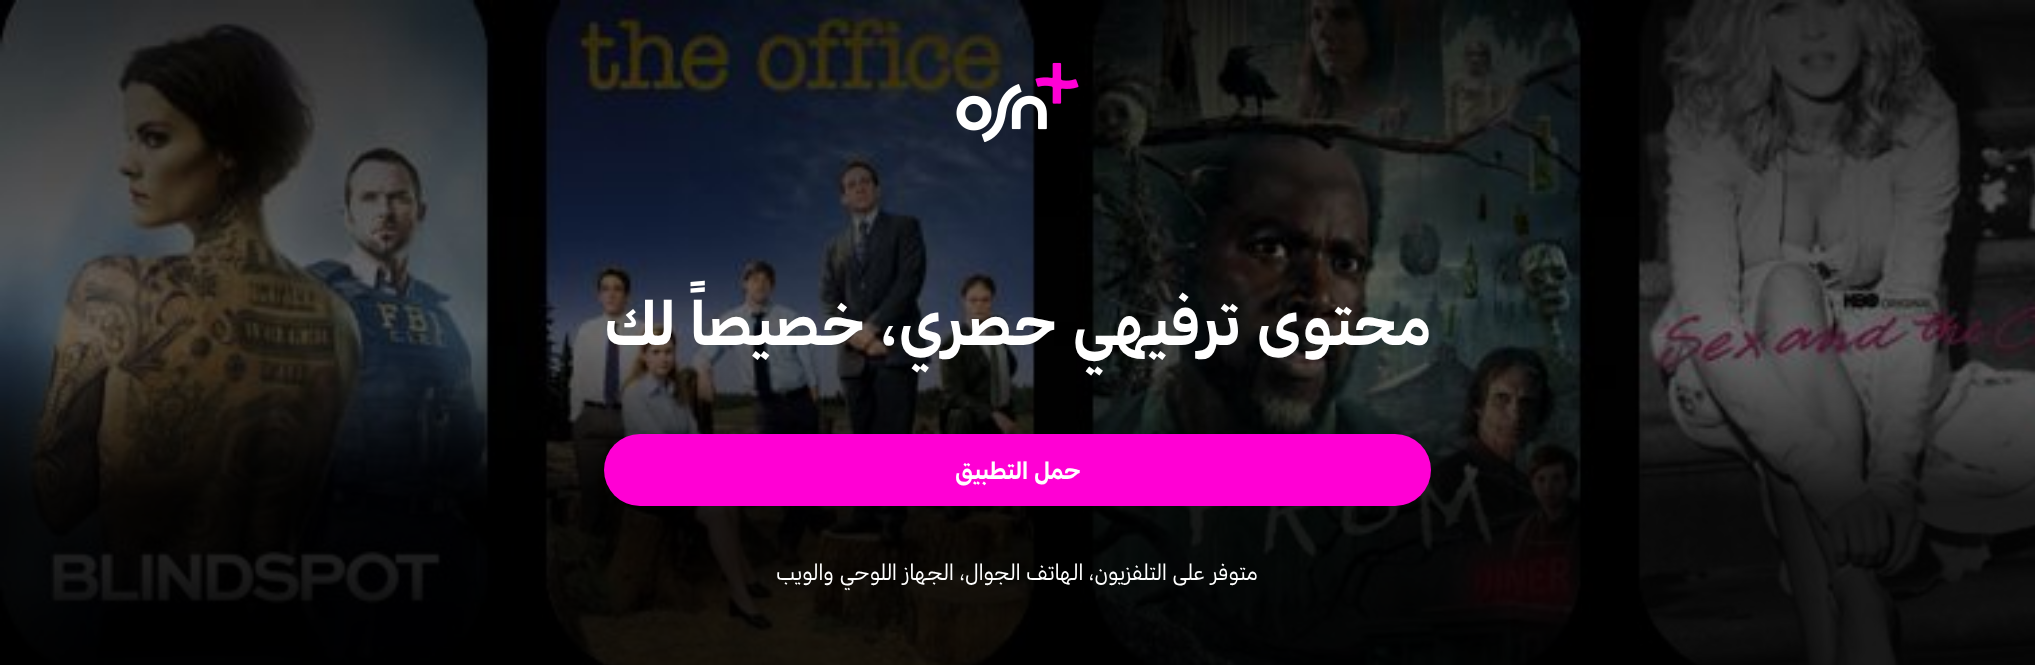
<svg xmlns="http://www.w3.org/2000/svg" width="2035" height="665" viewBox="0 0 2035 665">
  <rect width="100%" height="100%" fill="#fff"/>
  <image x="0" y="0" width="2035" height="665" href="img/1.png"/>
  <image x="956" y="62" width="123" height="81" href="img/2.png"/>
  <rect x="604" y="434" width="827" height="72" rx="36" fill="#ff00d4"/>
  <text x="1432" y="345" font-family="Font" font-size="64.25" font-weight="bold" direction="rtl" fill="#fff">محتوى ترفيهي حصري، خصيصاً لك</text>
  <text x="1081" y="479" font-family="Font" font-size="25" font-weight="bold" direction="rtl" fill="#fff">حمل التطبيق</text>
  <text x="1258" y="580" font-family="Font" font-size="23.25" direction="rtl" fill="#fff">متوفر على التلفزيون، الهاتف الجوال، الجهاز اللوحي والويب</text>
</svg>
